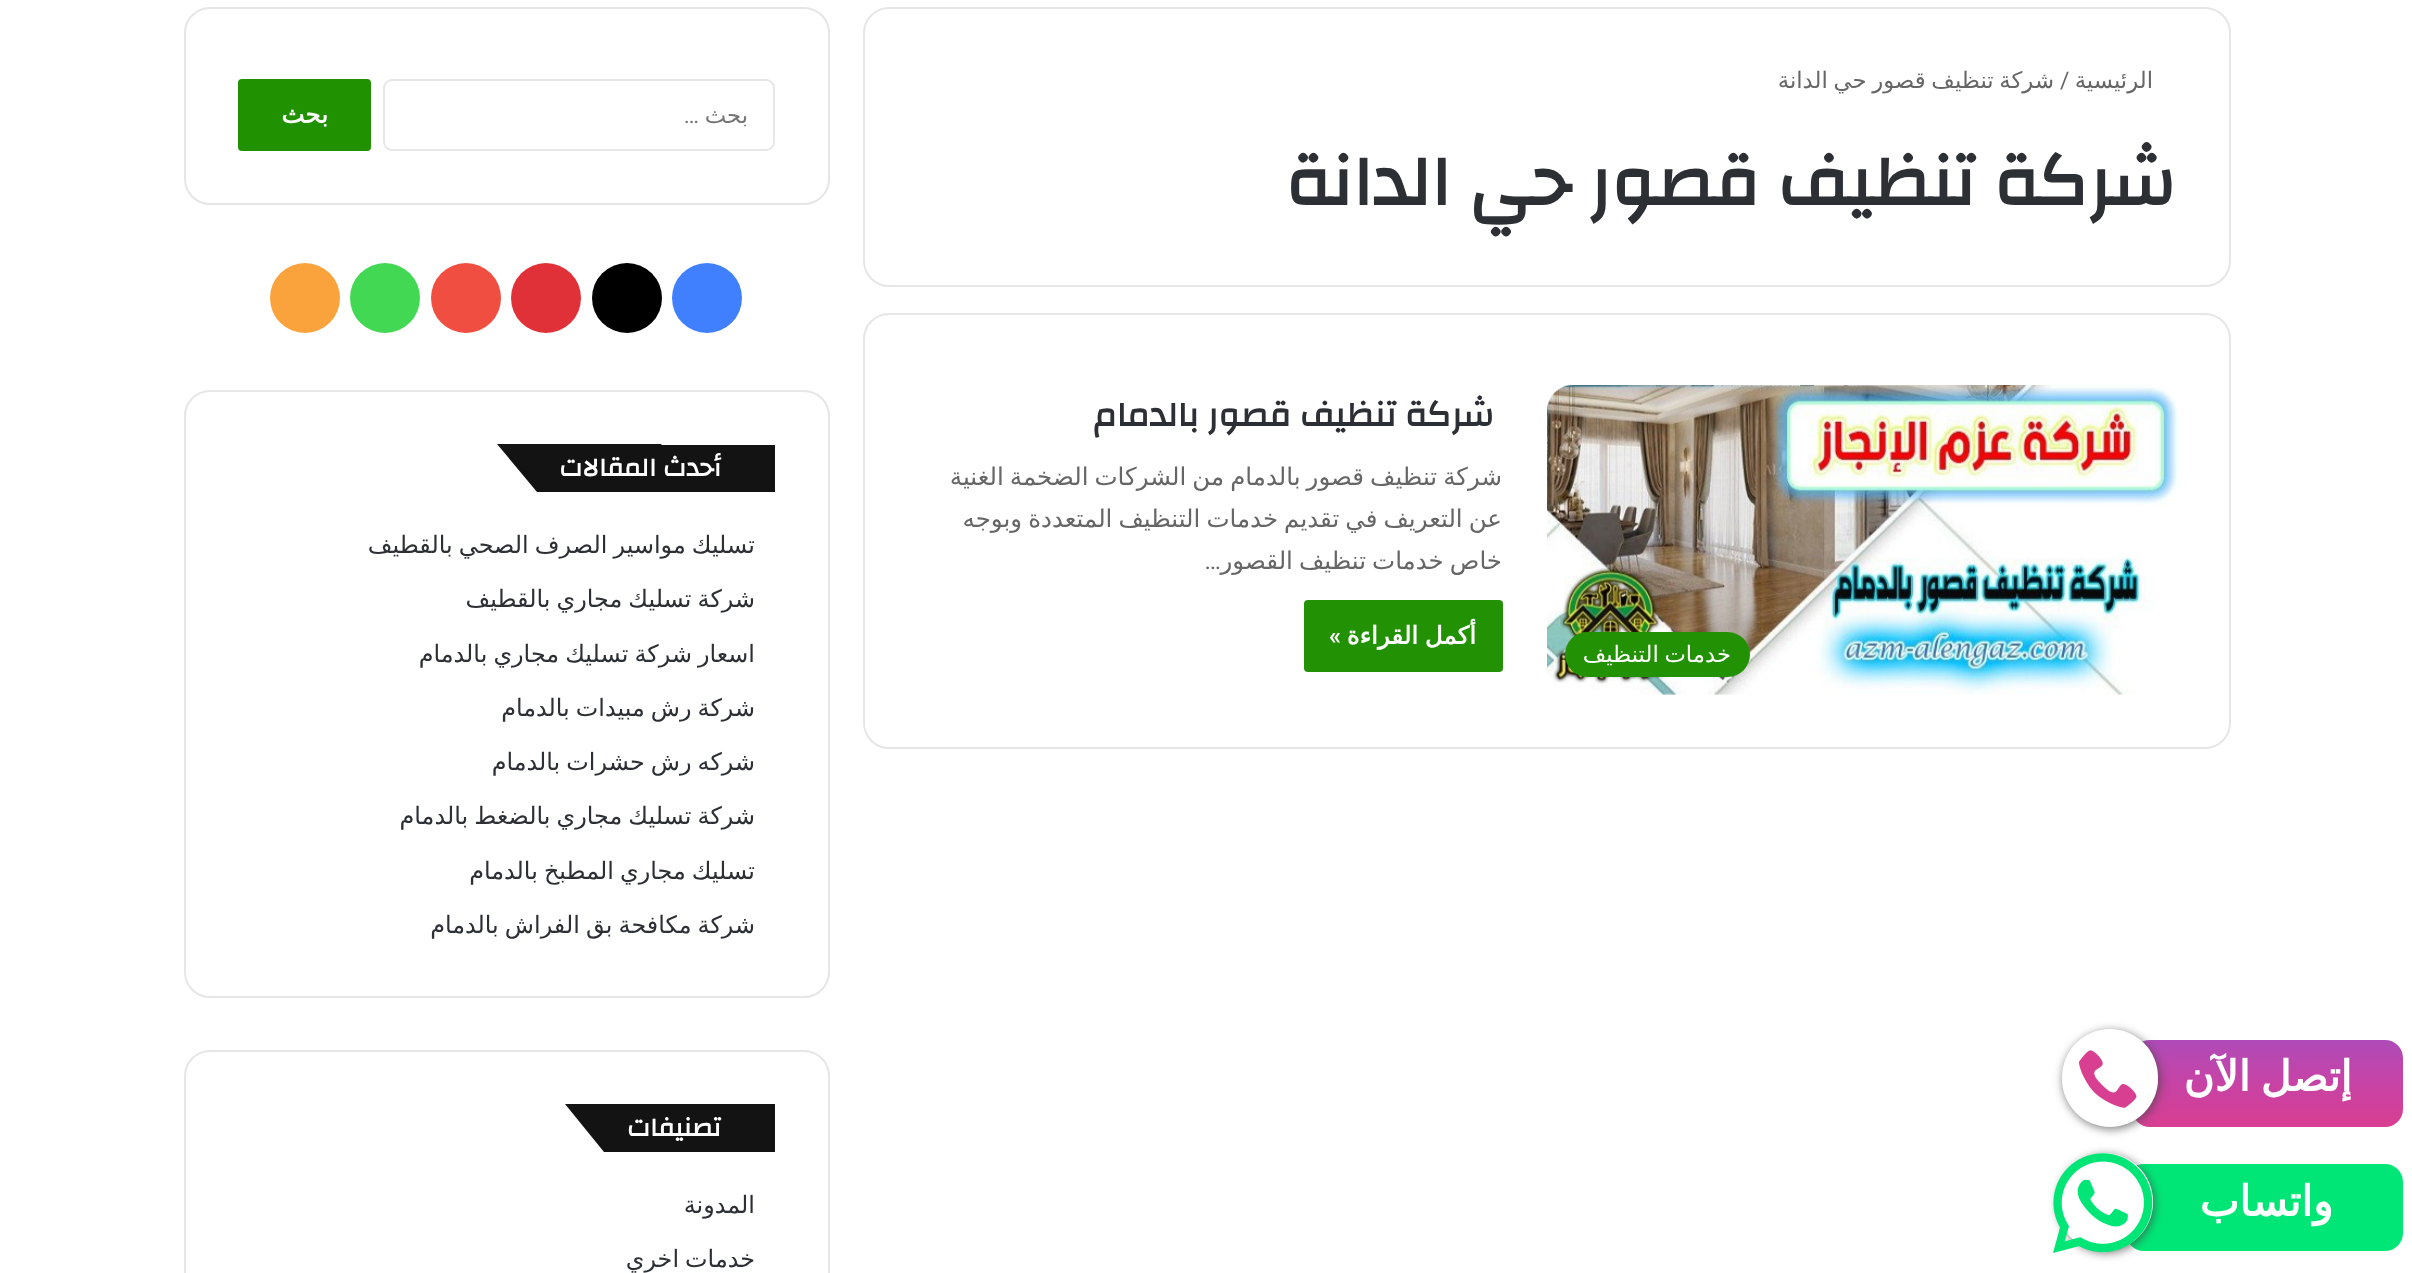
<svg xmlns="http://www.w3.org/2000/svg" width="2412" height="1273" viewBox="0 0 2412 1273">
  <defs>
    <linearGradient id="g1" gradientUnits="userSpaceOnUse" x1="2267" y1="1127" x2="2267" y2="1040"><stop offset="0" stop-color="#d83f91"/><stop offset="0.25" stop-color="#d0409b"/><stop offset="0.5" stop-color="#c743a5"/><stop offset="0.75" stop-color="#bb47af"/><stop offset="1" stop-color="#ae4bb8"/></linearGradient>
  </defs>
  <rect width="100%" height="100%" fill="#fff"/>
  <rect x="2132" y="1040" width="271" height="87" rx="18" fill="url(#g1)"/>
  <rect x="2063" y="1031" width="97" height="98" rx="48.5" fill="#444444b5" filter="blur(5px)"/>
  <rect x="2062" y="1029" width="96" height="98" rx="48" fill="#fff"/>
  <image x="2079" y="1050" width="58" height="58" href="img/1.png"/>
  <rect x="2126" y="1164" width="277" height="87" rx="18" fill="#00e676"/>
  <rect x="2058" y="1155" width="96" height="98" rx="48" fill="#444444b5" filter="blur(5px)"/>
  <rect x="2056" y="1153" width="97" height="98" rx="48.5" fill="#fff"/>
  <image x="2053" y="1153" width="100" height="100" href="img/2.png"/>
  <rect x="864" y="8" width="1366" height="278" rx="25" fill="none" stroke="#e6e6e6" stroke-width="2"/>
  <rect x="864" y="314" width="1366" height="434" rx="25" fill="none" stroke="#e6e6e6" stroke-width="2"/>
  <rect x="1304" y="600" width="199" height="72" rx="4" fill="#229204"/>
  <image x="1547" y="385" width="630" height="310" href="img/3.png"/>
  <rect x="1565" y="632" width="185" height="45" rx="22.5" fill="#229204"/>
  <rect x="185" y="8" width="644" height="196" rx="25" fill="none" stroke="#e6e6e6" stroke-width="2"/>
  <rect x="384" y="80" width="390" height="70" rx="8" fill="none" stroke="#e6e6e6" stroke-width="2"/>
  <rect x="238" y="79" width="133" height="72" rx="4" fill="#209101"/>
  <circle cx="707" cy="298" r="35" fill="#4080ff"/>
  <circle cx="627" cy="298" r="35" fill="#000"/>
  <circle cx="546" cy="298" r="35" fill="#e13138"/>
  <circle cx="466" cy="298" r="35" fill="#ef4e41"/>
  <circle cx="385" cy="298" r="35" fill="#43d854"/>
  <circle cx="305" cy="298" r="35" fill="#faa33d"/>
  <rect x="185" y="391" width="644" height="606" rx="25" fill="none" stroke="#e6e6e6" stroke-width="2"/>
  <path d="M661 445h114v47H661z" fill="#131313"/>
  <path d="M497 444H661L701 492H537Z" fill="#131313"/>
  <rect x="185" y="1051" width="644" height="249" rx="25" fill="none" stroke="#e6e6e6" stroke-width="2"/>
  <path d="M682 1104h93v48H682z" fill="#131313"/>
  <path d="M565 1104H682L721 1152H604Z" fill="#131313"/>
  <g font-family="DejaVu Sans" font-size="42" font-weight="bold" direction="rtl" fill="#fff">
    <text x="2352" y="1091" word-spacing="-3">إتصل الآن</text>
    <text x="2333" y="1216">واتساب</text>
  </g>
  <text x="2153" y="88" font-family="DejaVu Sans" font-size="22.75" direction="rtl" fill="#666">الرئيسية</text>
  <text x="2060" y="88" font-family="Roboto" font-size="22.75" fill="#666">/</text>
  <text x="2054" y="88" word-spacing="-1.5" font-family="DejaVu Sans" font-size="22.75" direction="rtl" fill="#666">شركة تنظيف قصور حي الدانة</text>
  <text x="2176" y="205" font-family="Changa" font-size="71.75" font-weight="bold" direction="rtl" fill="#2c2f34">شركة تنظيف قصور حي الدانة</text>
  <text x="1494" y="426" font-family="Changa" font-size="35" font-weight="bold" direction="rtl" fill="#2c2f34">شركة تنظيف قصور بالدمام</text>
  <g font-family="DejaVu Sans" font-size="24.5" direction="rtl" fill="#666">
    <text x="1502" y="485" word-spacing="-1.75">شركة تنظيف قصور بالدمام من الشركات الضخمة الغنية</text>
    <text x="1502" y="527" word-spacing="-1.75">عن التعريف في تقديم خدمات التنظيف المتعددة وبوجه</text>
  </g>
  <text x="1221" y="569" font-family="Roboto" font-size="24.5" direction="rtl" fill="#666">…</text>
  <text x="1502" y="569" word-spacing="-1.75" font-family="DejaVu Sans" font-size="24.5" direction="rtl" fill="#666">خاص خدمات تنظيف القصور</text>
  <text x="1476" y="644" word-spacing="-1" font-family="DejaVu Sans" font-size="24.5" font-weight="bold" direction="rtl" fill="#fff">أكمل القراءة</text>
  <text x="1341" y="644" font-family="Roboto" font-size="24.5" font-weight="600" direction="rtl" fill="#fff">»</text>
  <text x="1731" y="662" word-spacing="-1.5" font-family="DejaVu Sans" font-size="22.75" direction="rtl" fill="#fff">خدمات التنظيف</text>
  <text x="748" y="123" font-family="DejaVu Sans" font-size="22.75" direction="rtl" fill="#757575">بحث</text>
  <text x="699" y="123" font-family="Roboto" font-size="22.75" direction="rtl" fill="#757575">…</text>
  <text x="328" y="123" font-family="DejaVu Sans" font-size="24.5" font-weight="bold" direction="rtl" fill="#fff">بحث</text>
  <text x="721" y="476" font-family="Changa" font-size="26.25" font-weight="bold" direction="rtl" fill="#fff">أحدث المقالات</text>
  <g font-family="DejaVu Sans" font-size="23.9" direction="rtl" fill="#2c2f34">
    <text x="755" y="553" word-spacing="-1.5">تسليك مواسير الصرف الصحي بالقطيف</text>
    <text x="755" y="607" word-spacing="-1.5">شركة تسليك مجاري بالقطيف</text>
    <text x="755" y="662" word-spacing="-1.5">اسعار شركة تسليك مجاري بالدمام</text>
    <text x="755" y="716" word-spacing="-1.5">شركة رش مبيدات بالدمام</text>
    <text x="755" y="770" word-spacing="-1.5">شركه رش حشرات بالدمام</text>
    <text x="755" y="824" word-spacing="-1.5">شركة تسليك مجاري بالضغط بالدمام</text>
    <text x="755" y="879" word-spacing="-1.5">تسليك مجاري المطبخ بالدمام</text>
    <text x="755" y="933" word-spacing="-1.5">شركة مكافحة بق الفراش بالدمام</text>
  </g>
  <text x="721" y="1136" font-family="Changa" font-size="26.25" font-weight="bold" direction="rtl" fill="#fff">تصنيفات</text>
  <g font-family="DejaVu Sans" font-size="23.9" direction="rtl" fill="#2c2f34">
    <text x="755" y="1213">المدونة</text>
    <text x="755" y="1267" word-spacing="-1.5">خدمات اخري</text>
  </g>
</svg>
